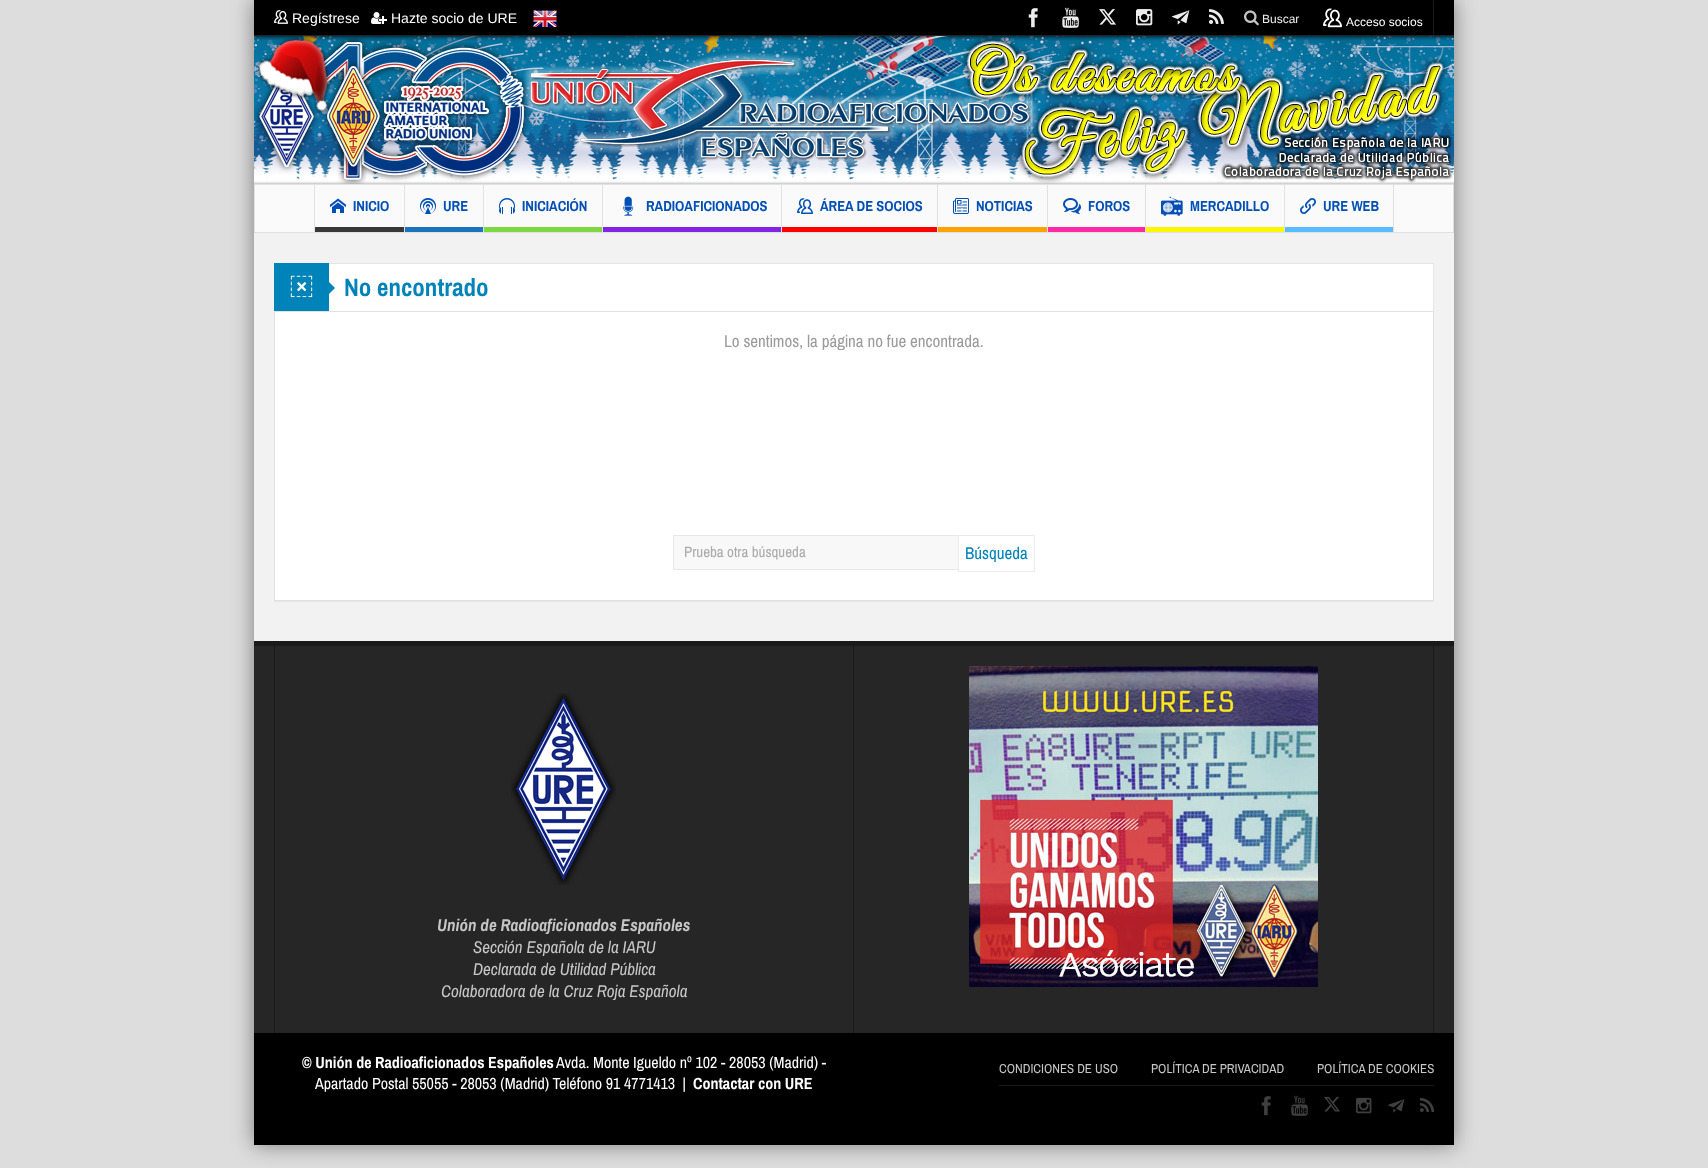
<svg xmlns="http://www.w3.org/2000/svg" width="1708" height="1168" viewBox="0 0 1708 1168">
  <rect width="100%" height="100%" fill="#ddd"/>
  <path d="M254 0h1200v1145H254z" fill="#00000070" filter="blur(10.5px)"/>
  <path d="M254 233h1200v408H254z" fill="#f2f2f2"/>
  <path d="M254 0h1200v35H254z" fill="#000"/>
  <path d="M254 35h1200v1H254z" fill="#222"/>
  <image x="274" y="10" width="14" height="14" href="img/1.png"/>
  <image x="371" y="12" width="16" height="12" href="img/2.png"/>
  <image x="533" y="10" width="24" height="17" href="img/3.png"/>
  <image x="1028" y="8" width="10" height="20" href="img/4.png"/>
  <image x="1062" y="7" width="17" height="21" href="img/5.png"/>
  <image x="1099" y="9" width="17" height="16" href="img/6.png"/>
  <image x="1136" y="9" width="17" height="17" href="img/7.png"/>
  <image x="1171" y="10" width="19" height="15" href="img/8.png"/>
  <image x="1209" y="9" width="15" height="15" href="img/9.png"/>
  <image x="1244" y="10" width="15" height="16" href="img/10.png"/>
  <path d="M1434 0V35H1433V1Z" fill="#1b1b1b"/>
  <image x="1323" y="8" width="19" height="20" href="img/11.png"/>
  <image x="254" y="36" width="1200" height="148" href="img/12.png"/>
  <path d="M254.5 184.5h1199v48H254.5z" fill="#fafafa" stroke="#e1e1e1"/>
  <path d="M404 185h1v47H404z" fill="#e1e1e1"/>
  <path d="M314 185h1v47H314z" fill="#e1e1e1"/>
  <image x="330" y="198" width="16" height="15" href="img/13.png"/>
  <path d="M315 227h89v5H315z" fill="#383838"/>
  <path d="M483 185h1v47H483z" fill="#e1e1e1"/>
  <image x="420" y="198" width="16" height="16" href="img/14.png"/>
  <path d="M405 227h78v5H405z" fill="#1e73be"/>
  <path d="M602 185h1v47H602z" fill="#e1e1e1"/>
  <image x="499" y="198" width="16" height="16" href="img/15.png"/>
  <path d="M484 227h118v5H484z" fill="#81d742"/>
  <path d="M781 185h1v47H781z" fill="#e1e1e1"/>
  <image x="623" y="196" width="11" height="20" href="img/16.png"/>
  <path d="M603 227h178v5H603z" fill="#8224e3"/>
  <path d="M937 185h1v47H937z" fill="#e1e1e1"/>
  <image x="797" y="198" width="16" height="16" href="img/17.png"/>
  <path d="M782 227h155v5H782z" fill="#f00"/>
  <path d="M1047 185h1v47H1047z" fill="#e1e1e1"/>
  <image x="953" y="198" width="16" height="16" href="img/18.png"/>
  <path d="M938 227h109v5H938z" fill="#ffa100"/>
  <path d="M1145 185h1v47H1145z" fill="#e1e1e1"/>
  <image x="1063" y="198" width="18" height="16" href="img/19.png"/>
  <path d="M1048 227h97v5H1048z" fill="#ff28a5"/>
  <path d="M1284 185h1v47H1284z" fill="#e1e1e1"/>
  <image x="1161" y="196" width="22" height="20" href="img/20.png"/>
  <path d="M1146 227h138v5H1146z" fill="#fff600"/>
  <path d="M1393 185h1v47H1393z" fill="#e1e1e1"/>
  <image x="1300" y="198" width="16" height="16" href="img/21.png"/>
  <path d="M1285 227h108v5H1285z" fill="#59bcff"/>
  <path d="M329 264h1104v47H329z" fill="#fff"/>
  <path d="M329 263h1105v1H329z" fill="#e5e5e5"/>
  <path d="M1433 263h1v48H1433z" fill="#e5e5e5"/>
  <path d="M274 263h55v48H274z" fill="#0083b9"/>
  <image x="290" y="275" width="23" height="23" href="img/22.png"/>
  <path d="M329 294V282L335 288Z" fill="#0083b9"/>
  <path d="M274 601h1160v1H274z" fill="#e5e5e5"/>
  <path d="M274.5 311.5h1159v289H274.5z" fill="#fff" stroke="#e1e1e1"/>
  <path d="M674 536h284v33H674z" fill="#f8f8f8"/>
  <path d="M673 535h285v1H673z" fill="#e7e7e7"/>
  <path d="M673 569h285v1H673z" fill="#e7e7e7"/>
  <path d="M673 535h1v35H673z" fill="#e7e7e7"/>
  <path d="M958.5 535.5h76v36H958.5z" fill="none" stroke="#eaeaea"/>
  <path d="M254 646h1200v387H254z" fill="#262626"/>
  <path d="M254 641h1200v5H254z" fill="#1a1a1a"/>
  <path d="M853 646h1v387H853z" fill="#1a1a1a"/>
  <path d="M274 646h1v387H274z" fill="#1a1a1a"/>
  <image x="511" y="693" width="105" height="192" href="img/23.png"/>
  <path d="M1433 646h1v387H1433z" fill="#1a1a1a"/>
  <image x="969" y="666" width="349" height="321" href="img/24.png"/>
  <path d="M254 1033h1200v112H254z" fill="#000"/>
  <path d="M999 1085h435v1H999z" fill="#1a1a1a"/>
  <image x="1261" y="1096" width="10" height="20" href="img/25.png"/>
  <image x="1291" y="1095" width="17" height="21" href="img/26.png"/>
  <image x="1324" y="1096" width="16" height="16" href="img/27.png"/>
  <image x="1356" y="1097" width="16" height="17" href="img/28.png"/>
  <image x="1387" y="1099" width="18" height="14" href="img/29.png"/>
  <image x="1420" y="1097" width="15" height="15" href="img/30.png"/>
  <g font-family="Liberation Sans" font-size="14" fill="#fff">
    <text x="292" y="23">Regístrese</text>
    <text x="391" y="23">Hazte socio de URE</text>
  </g>
  <text x="1262" y="23" font-family="Liberation Sans" font-size="12" fill="#ededed">Buscar</text>
  <text x="1346" y="26" font-family="Liberation Sans" font-size="12" fill="#fff">Acceso socios</text>
  <g font-family="Archivo Narrow" font-size="14.5" font-weight="bold" fill="#004fb7">
    <text x="353" y="211">INICIO</text>
    <text x="443" y="211">URE</text>
    <text x="522" y="211">INICIACIÓN</text>
    <text x="646" y="211">RADIOAFICIONADOS</text>
    <text x="820" y="211">ÁREA DE SOCIOS</text>
    <text x="976" y="211">NOTICIAS</text>
    <text x="1088" y="211">FOROS</text>
    <text x="1190" y="211">MERCADILLO</text>
    <text x="1323" y="211">URE WEB</text>
  </g>
  <text x="344" y="296" font-family="Archivo Narrow" font-size="25" font-weight="bold" fill="#0083b9">No encontrado</text>
  <text x="724" y="347" font-family="Archivo Narrow" font-size="17" fill="#9b9b9b">Lo sentimos, la página no fue encontrada.</text>
  <text x="684" y="557" font-family="Archivo Narrow" font-size="15" fill="#aaa">Prueba otra búsqueda</text>
  <text x="965" y="559" font-family="Archivo Narrow" font-size="17" fill="#0083b9">Búsqueda</text>
  <text x="437" y="931" font-family="Archivo Narrow" font-size="17" font-weight="bold" font-style="italic" fill="#c6c6c6">Unión de Radioaficionados Españoles</text>
  <g font-family="Archivo Narrow" font-size="17" font-style="italic" fill="#c6c6c6">
    <text x="473" y="953">Sección Española de la IARU</text>
    <text x="473" y="975">Declarada de Utilidad Pública</text>
    <text x="441" y="997">Colaboradora de la Cruz Roja Española</text>
  </g>
  <text x="302" y="1068" font-family="Archivo Narrow" font-size="16" font-weight="bold" fill="#fff">© Unión de Radioaficionados Españoles</text>
  <g font-family="Archivo Narrow" font-size="16" fill="#fff">
    <text x="556" y="1068">Avda. Monte Igueldo nº 102 - 28053 (Madrid) -</text>
    <text x="315" y="1089" xml:space="preserve">Apartado Postal 55055 - 28053 (Madrid) Teléfono 91 4771413  |</text>
  </g>
  <text x="693" y="1089" font-family="Archivo Narrow" font-size="16" font-weight="bold" fill="#fff">Contactar con URE</text>
  <g font-family="Archivo Narrow" font-size="13" fill="#c6c6c6">
    <text x="999" y="1073">CONDICIONES DE USO</text>
    <text x="1151" y="1073">POLÍTICA DE PRIVACIDAD</text>
    <text x="1317" y="1073">POLÍTICA DE COOKIES</text>
  </g>
</svg>
